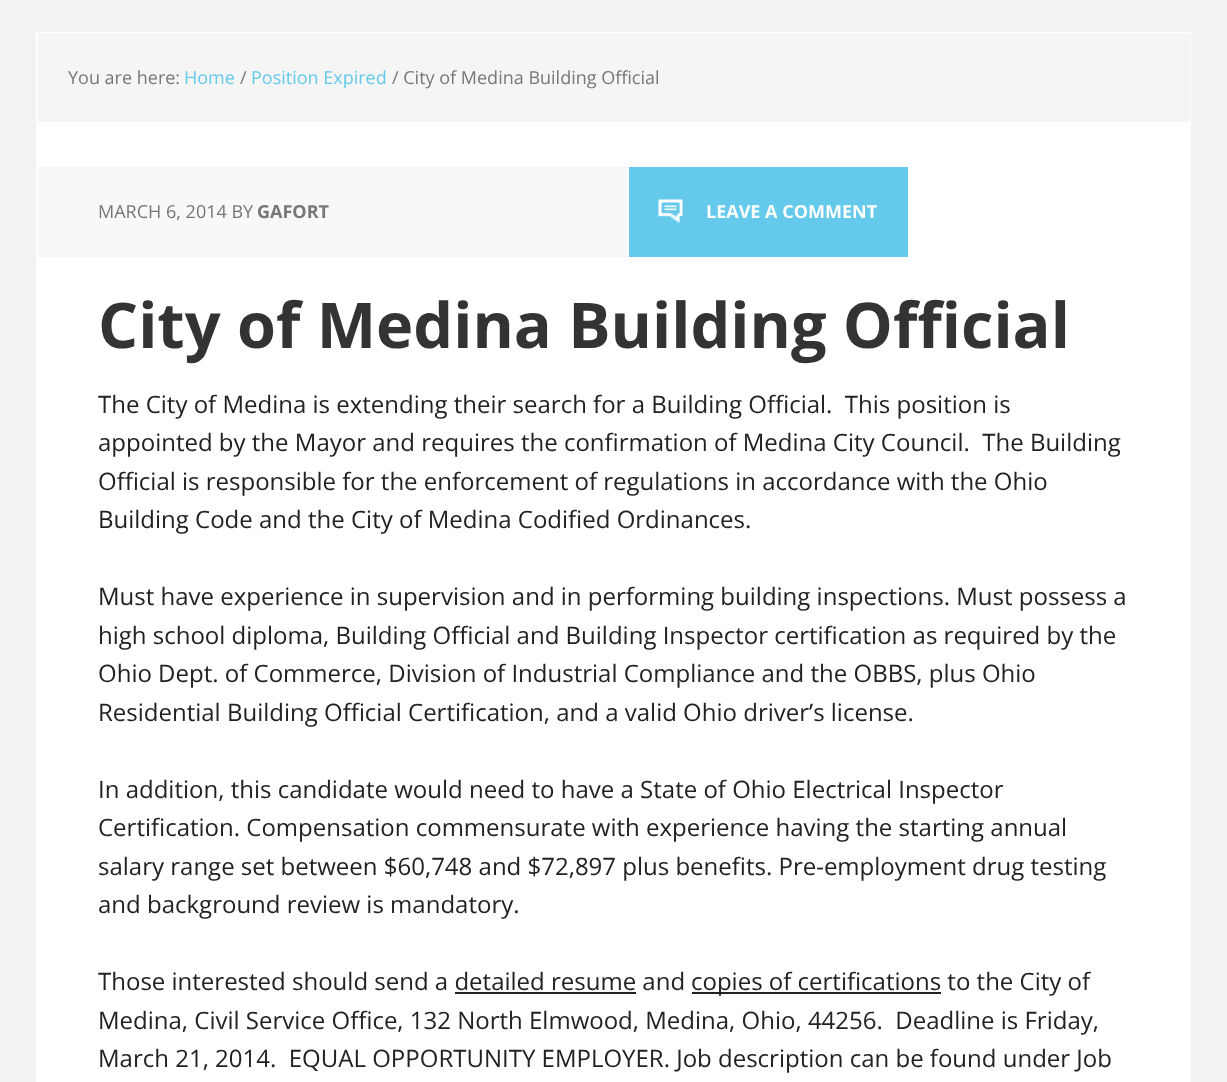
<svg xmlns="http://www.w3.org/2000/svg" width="1227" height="1082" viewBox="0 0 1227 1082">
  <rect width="100%" height="100%" fill="#f2f2f2"/>
  <path d="M37 33h1153v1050H37z" fill="none" stroke="#fff" stroke-width="2"/>
  <path d="M38 122h1151v960H38z" fill="#fff"/>
  <path d="M38 33h1152v89H38z" fill="#f5f5f5"/>
  <path d="M38 167h591v90H38z" fill="#f8f8f8"/>
  <path d="M629 167h279v90H629z" fill="#64c9ea"/>
  <image x="658" y="199" width="25" height="25" href="img/1.png"/>
  <path d="M692 992h249v2H692z" fill="#222"/>
  <path d="M455 992h181v2H455z" fill="#222"/>
  <text x="68" y="84" font-family="Open Sans" font-size="18" fill="#777">You are here:</text>
  <text x="184" y="84" font-family="Open Sans" font-size="18" fill="#64c9ea">Home</text>
  <text x="240" y="84" font-family="Open Sans" font-size="18" fill="#777">/</text>
  <text x="251" y="84" font-family="Open Sans" font-size="18" fill="#64c9ea">Position Expired</text>
  <g font-family="Open Sans" font-size="18" fill="#777">
    <text x="392" y="84">/ City of Medina Building Official</text>
    <text x="98" y="218">MARCH 6, 2014 BY</text>
  </g>
  <text x="257" y="218" font-family="Open Sans" font-size="18" font-weight="bold" fill="#777">GAFORT</text>
  <text x="706" y="218" font-family="Open Sans" font-size="18" font-weight="bold" fill="#fff">LEAVE A COMMENT</text>
  <text x="98" y="348" font-family="Open Sans" font-size="63" font-weight="bold" fill="#333">City of Medina Building Official</text>
  <g font-family="Open Sans" font-size="24" fill="#222">
    <text x="98" y="413" xml:space="preserve">The City of Medina is extending their search for a Building Official.  This position is</text>
    <text x="98" y="451" xml:space="preserve">appointed by the Mayor and requires the confirmation of Medina City Council.  The Building</text>
    <text x="98" y="490">Official is responsible for the enforcement of regulations in accordance with the Ohio</text>
    <text x="98" y="528">Building Code and the City of Medina Codified Ordinances.</text>
    <text x="98" y="605">Must have experience in supervision and in performing building inspections. Must possess a</text>
    <text x="98" y="644">high school diploma, Building Official and Building Inspector certification as required by the</text>
    <text x="98" y="682">Ohio Dept. of Commerce, Division of Industrial Compliance and the OBBS, plus Ohio</text>
    <text x="98" y="721">Residential Building Official Certification, and a valid Ohio driver’s license.</text>
    <text x="98" y="798">In addition, this candidate would need to have a State of Ohio Electrical Inspector</text>
    <text x="98" y="836">Certification. Compensation commensurate with experience having the starting annual</text>
    <text x="98" y="875">salary range set between $60,748 and $72,897 plus benefits. Pre-employment drug testing</text>
    <text x="98" y="913">and background review is mandatory.</text>
    <text x="98" y="990">Those interested should send a detailed resume and</text>
    <text x="691" y="990">copies of certifications to the City of</text>
    <text x="98" y="1029" xml:space="preserve">Medina, Civil Service Office, 132 North Elmwood, Medina, Ohio, 44256.  Deadline is Friday,</text>
    <text x="98" y="1067" xml:space="preserve">March 21, 2014.  EQUAL OPPORTUNITY EMPLOYER. Job description can be found under Job</text>
  </g>
</svg>
